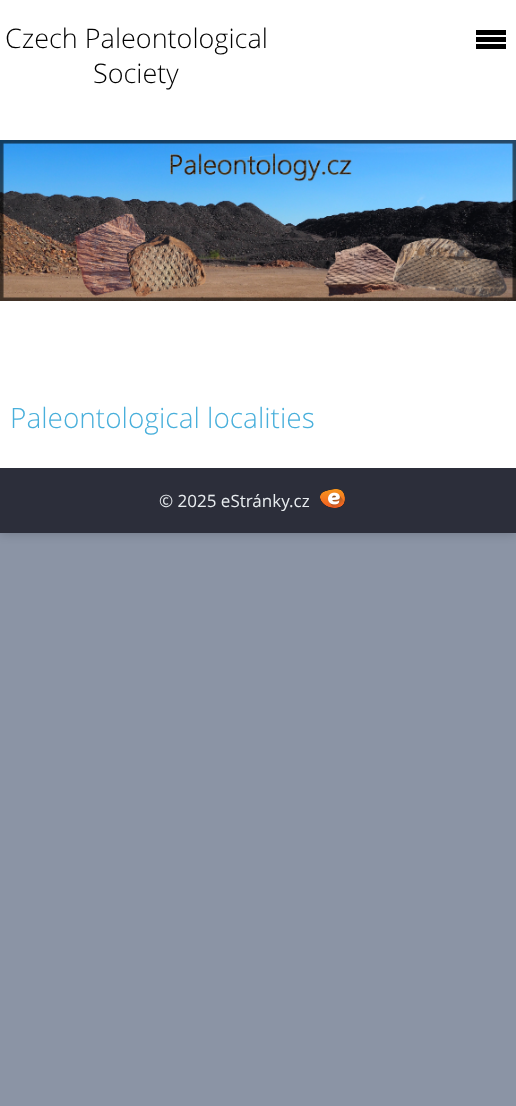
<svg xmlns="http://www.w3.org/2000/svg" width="516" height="1106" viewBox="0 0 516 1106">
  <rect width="100%" height="100%" fill="#8b94a5"/>
  <path d="M0 0h516v533H0z" fill="#00000033" filter="blur(5.5px)"/>
  <path d="M0 0h516v468H0z" fill="#fff"/>
  <image x="0" y="140" width="516" height="161" href="img/1.png"/>
  <path d="M476 30h30v5H476z" fill="#000"/>
  <path d="M476 37h30v5H476z" fill="#000"/>
  <path d="M476 44h30v5H476z" fill="#000"/>
  <path d="M0 468h516v65H0z" fill="#2c2e3a"/>
  <image x="320" y="489" width="25" height="19" href="img/2.png"/>
  <g font-family="Open Sans" font-size="27" font-weight="300" fill="#000">
    <text x="5" y="48">Czech Paleontological</text>
    <text x="93" y="83">Society</text>
  </g>
  <text x="10" y="428" font-family="Open Sans" font-size="28" font-weight="300" fill="#48afdb">Paleontological localities</text>
  <text x="159" y="507" font-family="Open Sans" font-size="17" fill="#e8ecef">© 2025 eStránky.cz</text>
</svg>
